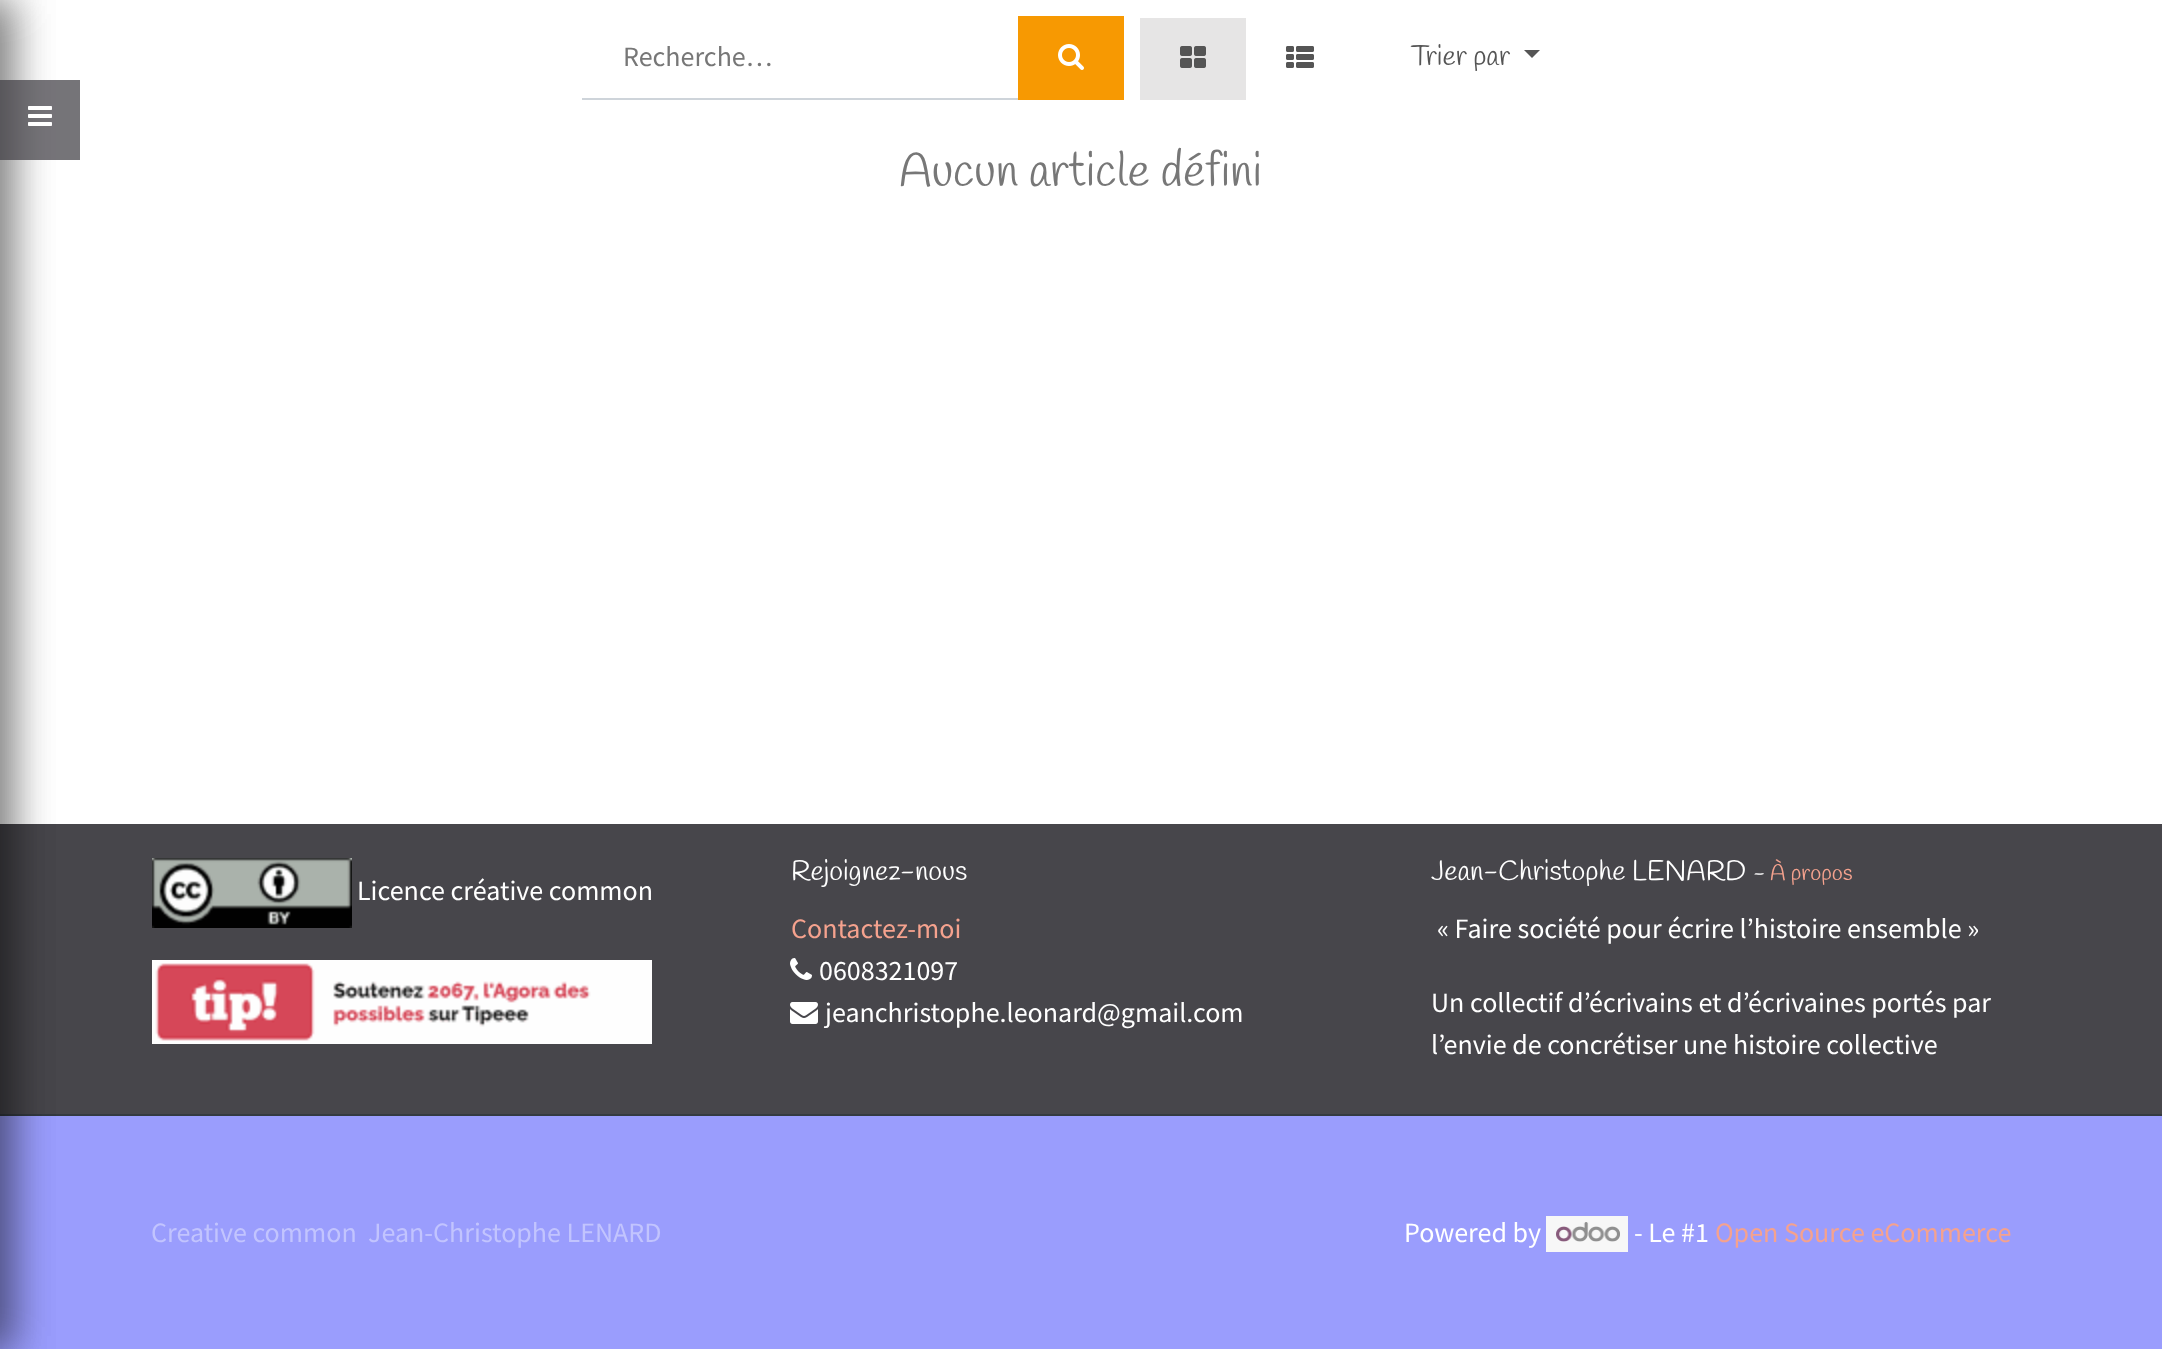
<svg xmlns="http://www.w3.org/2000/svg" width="2162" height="1349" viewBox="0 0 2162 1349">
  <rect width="100%" height="100%" fill="#fff"/>
  <path d="M0 824h2162v290H0z" fill="#47464b"/>
  <path d="M0 1116h2162v233H0z" fill="#9a9dfd"/>
  <path d="M0 1114h2162v2H0z" fill="#343a40"/>
  <path d="M-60 0h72v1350H-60z" fill="#0000004d" filter="blur(20px)"/>
  <path d="M0 80h80v80H0z" fill="#47464b80"/>
  <image x="28" y="106" width="24" height="20" href="img/1.png"/>
  <path d="M-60 0h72v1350H-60z" fill="#0000004d" filter="blur(20px)"/>
  <path d="M0 80h80v80H0z" fill="#47464b80"/>
  <image x="28" y="106" width="24" height="20" href="img/2.png"/>
  <path d="M582 98h438v2H582z" fill="#ced4da"/>
  <path d="M1018 16h106v84H1018z" fill="#f79902"/>
  <image x="1058" y="44" width="26" height="26" href="img/3.png"/>
  <path d="M1140 18h106v82H1140z" fill="#e6e5e5"/>
  <image x="1180" y="46" width="26" height="22" href="img/4.png"/>
  <image x="1286" y="46" width="28" height="22" href="img/5.png"/>
  <path d="M1524 50H1540L1532 58Z" fill="#555"/>
  <image x="152" y="858" width="200" height="70" href="img/6.png"/>
  <image x="152" y="960" width="500" height="84" href="img/7.png"/>
  <image x="790" y="958" width="22" height="22" href="img/8.png"/>
  <image x="790" y="1002" width="28" height="22" href="img/9.png"/>
  <path d="M1546 1216h82v36H1546z" fill="#f7f7f7"/>
  <image x="1556" y="1222" width="64" height="20" href="img/10.png"/>
  <text x="623" y="66" font-family="Source Sans Pro" font-size="28" fill="#777">Recherche…</text>
  <text x="1411" y="65" font-family="Handlee" font-size="28" fill="#555">Trier par</text>
  <text x="899" y="186" font-family="Handlee" font-size="47.25" fill="#777">Aucun article défini</text>
  <text x="357" y="900" font-family="Source Sans Pro" font-size="28" fill="#fff">Licence créative common</text>
  <text x="791" y="880" font-family="Handlee" font-size="28" fill="#fff">Rejoignez-nous</text>
  <text x="791" y="938" font-family="Source Sans Pro" font-size="28" fill="#f5a28e">Contactez-moi</text>
  <g font-family="Source Sans Pro" font-size="28" fill="#fff">
    <text x="819" y="980">0608321097</text>
    <text x="825" y="1022">jeanchristophe.leonard@gmail.com</text>
  </g>
  <text x="1431" y="880" font-family="Handlee" font-size="28" fill="#fff">Jean-Christophe LENARD</text>
  <text x="1753" y="880" font-family="Handlee" font-size="22.5" fill="#fff">-</text>
  <text x="1770" y="880" font-family="Handlee" font-size="22.5" fill="#f5a28e">À propos</text>
  <g font-family="Source Sans Pro" font-size="28" fill="#fff">
    <text x="1437" y="938">« Faire société pour écrire l’histoire ensemble »</text>
    <text x="1431" y="1012">Un collectif d’écrivains et d’écrivaines portés par</text>
    <text x="1431" y="1054">l’envie de concrétiser une histoire collective</text>
  </g>
  <g font-family="Source Sans Pro" font-size="28" fill="#c2c4fe">
    <text x="151" y="1242">Creative common</text>
    <text x="368" y="1242">Jean-Christophe LENARD</text>
  </g>
  <g font-family="Source Sans Pro" font-size="28" fill="#fff">
    <text x="1404" y="1242">Powered by</text>
    <text x="1634" y="1242">- Le #1</text>
  </g>
  <text x="1715" y="1242" font-family="Source Sans Pro" font-size="28" fill="#f5a28e">Open Source eCommerce</text>
</svg>
